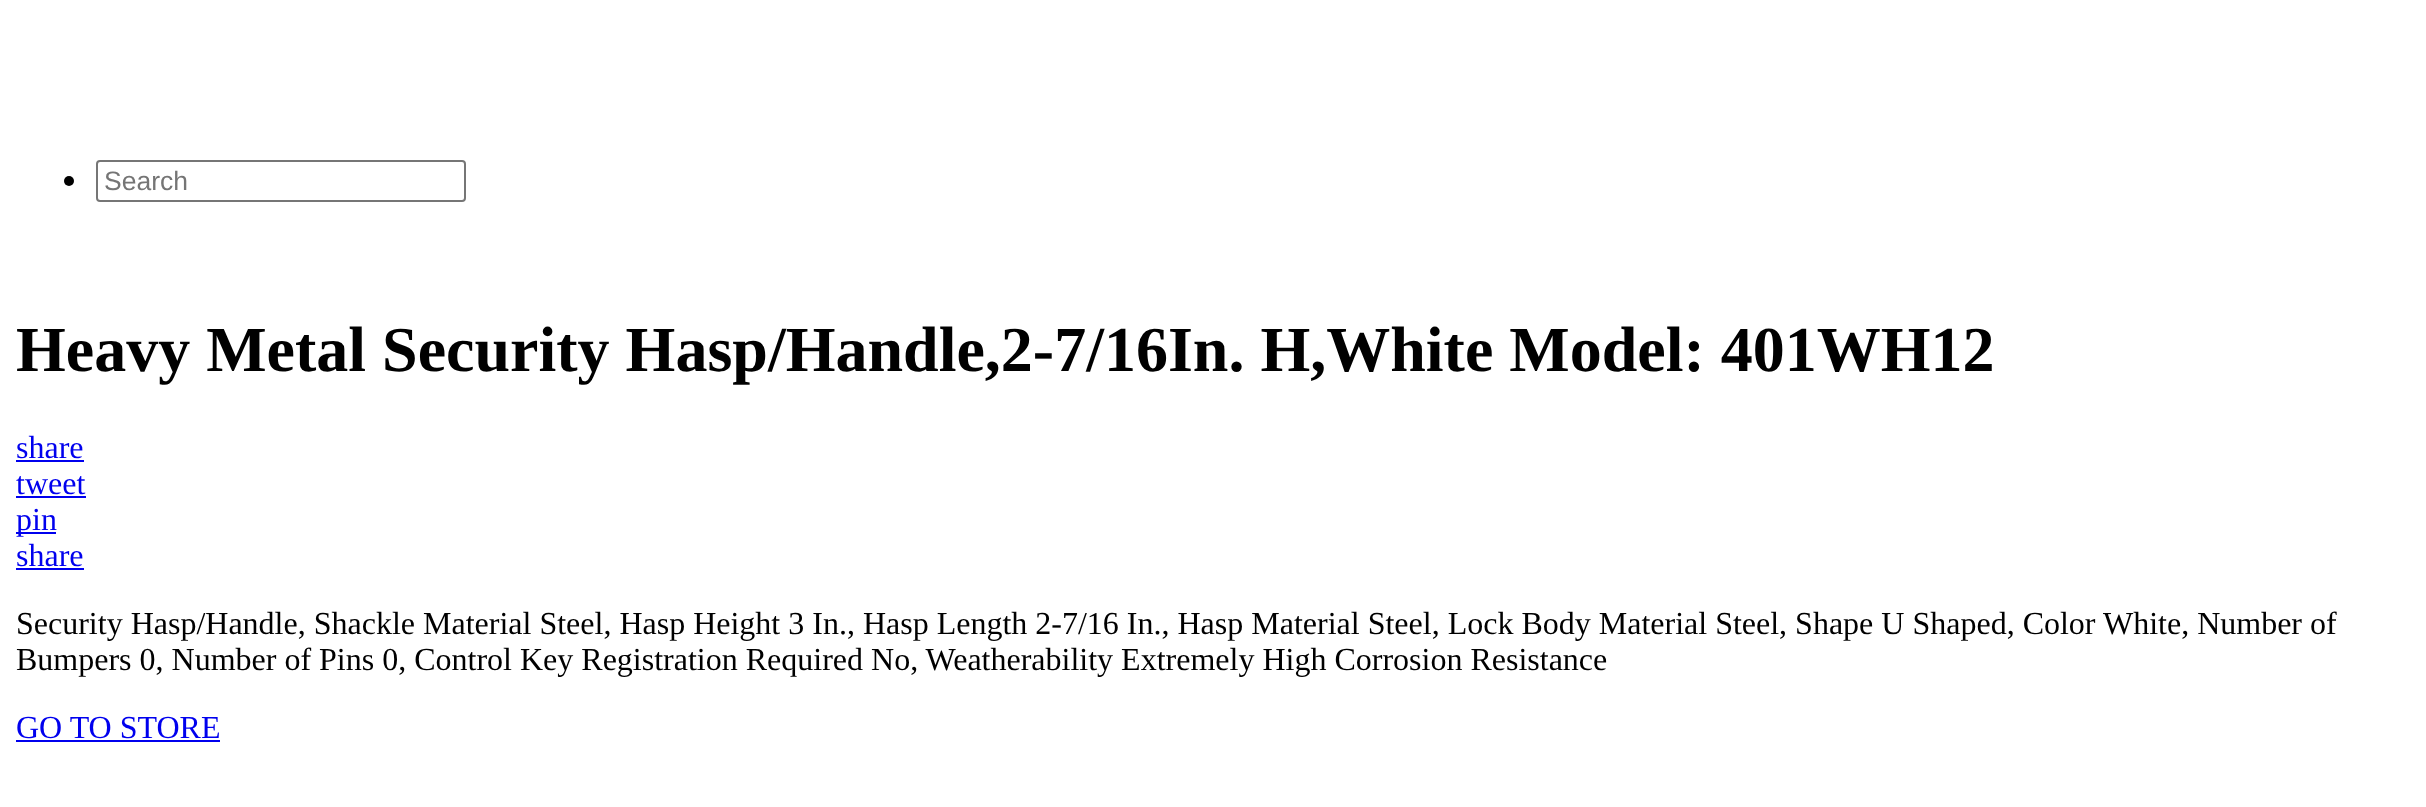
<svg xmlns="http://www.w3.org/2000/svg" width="2426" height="807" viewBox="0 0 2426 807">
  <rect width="100%" height="100%" fill="#fff"/>
  <circle cx="69" cy="181" r="5" fill="#000"/>
  <rect x="97" y="161" width="368" height="40" rx="3" fill="none" stroke="#767676" stroke-width="2"/>
  <path d="M16 460h68v2H16z" fill="#00e"/>
  <path d="M16 496h70v2H16z" fill="#00e"/>
  <path d="M16 532h40v2H16z" fill="#00e"/>
  <path d="M16 568h68v2H16z" fill="#00e"/>
  <path d="M16 740h204v2H16z" fill="#00e"/>
  <text x="104" y="190" font-family="Liberation Sans" font-size="26.5" fill="#757575">Search</text>
  <text x="16" y="371" font-family="Liberation Serif" font-size="64" font-weight="bold" fill="#000">Heavy Metal Security Hasp/Handle,2-7/16In. H,White Model: 401WH12</text>
  <g font-family="Liberation Serif" font-size="32" fill="#00e">
    <text x="16" y="458">share</text>
    <text x="16" y="494">tweet</text>
    <text x="16" y="530">pin</text>
    <text x="16" y="566">share</text>
  </g>
  <g font-family="Liberation Serif" font-size="32" fill="#000">
    <text x="16" y="634">Security Hasp/Handle, Shackle Material Steel, Hasp Height 3 In., Hasp Length 2-7/16 In., Hasp Material Steel, Lock Body Material Steel, Shape U Shaped, Color White, Number of</text>
    <text x="16" y="670">Bumpers 0, Number of Pins 0, Control Key Registration Required No, Weatherability Extremely High Corrosion Resistance</text>
  </g>
  <text x="16" y="738" font-family="Liberation Serif" font-size="32" fill="#00e">GO TO STORE</text>
</svg>
